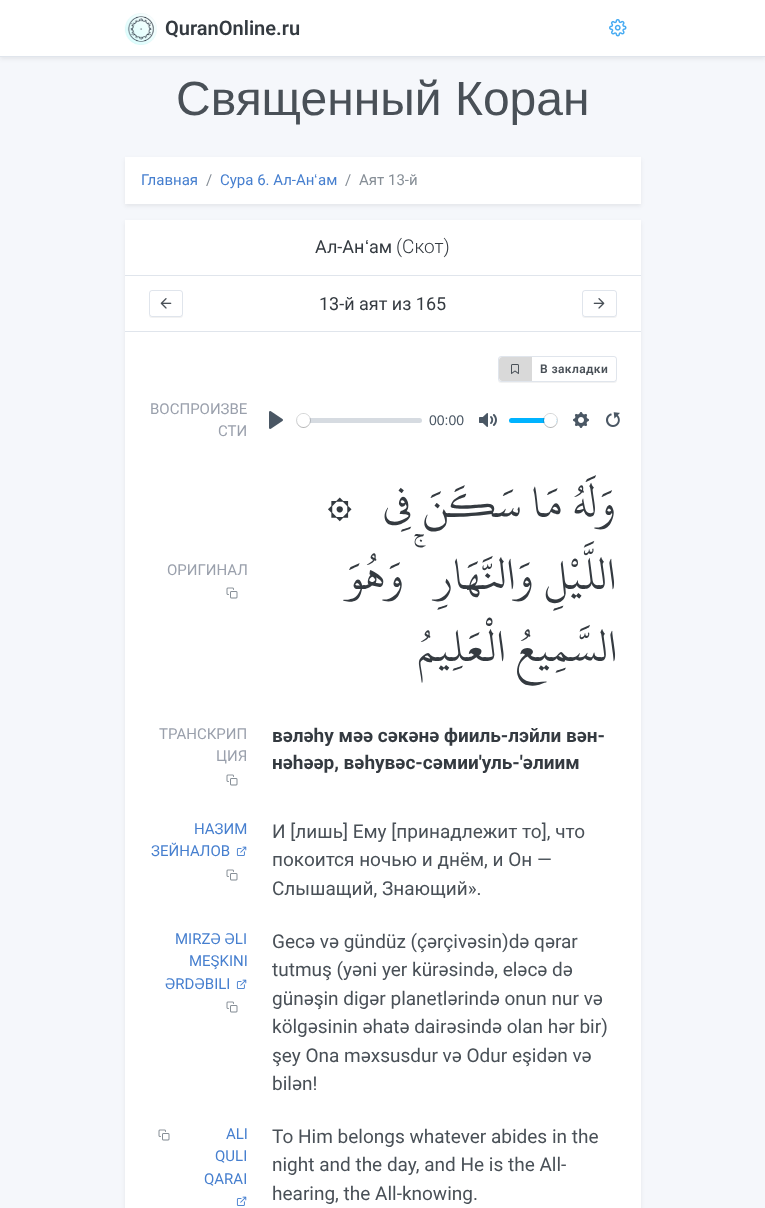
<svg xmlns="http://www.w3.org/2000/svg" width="765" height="1208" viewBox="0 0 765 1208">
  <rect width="100%" height="100%" fill="#f5f7fb"/>
  <path d="M0 2h765v57H0z" fill="#00000012" filter="blur(2px)"/>
  <path d="M0 0h765v56H0z" fill="#fff"/>
  <path d="M0 56h765v1H0z" fill="#e0e5ec"/>
  <image x="124" y="13" width="33" height="32" href="img/1.png"/>
  <image x="609" y="19" width="18" height="18" href="img/2.png"/>
  <path d="M125 159h516v47H125z" fill="#00000012" filter="blur(2px)"/>
  <path d="M125 157h516v47H125z" fill="#fff"/>
  <path d="M125 222h516v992H125z" fill="#00000012" filter="blur(2px)"/>
  <path d="M125 220h516v988H125z" fill="#fff"/>
  <path d="M125 275h516v1H125z" fill="#e0e5ec"/>
  <path d="M125 331h516v1H125z" fill="#e0e5ec"/>
  <rect x="149" y="291" width="34" height="27" rx="3" fill="#0000000d" filter="blur(0.5px)"/>
  <rect x="149" y="290" width="34" height="27" rx="3" fill="#fff"/>
  <rect x="149.5" y="290.5" width="33" height="26" rx="2.5" fill="none" stroke="#0028641f"/>
  <image x="160" y="298" width="12" height="11" href="img/3.png"/>
  <rect x="582" y="291" width="35" height="27" rx="3" fill="#0000000d" filter="blur(0.5px)"/>
  <rect x="582" y="290" width="35" height="27" rx="3" fill="#fff"/>
  <rect x="582.5" y="290.5" width="34" height="26" rx="2.5" fill="none" stroke="#0028641f"/>
  <image x="593" y="298" width="12" height="11" href="img/4.png"/>
  <rect x="498" y="357" width="119" height="26" rx="3" fill="#0000000d" filter="blur(0.5px)"/>
  <rect x="498" y="356" width="119" height="26" rx="3" fill="#fff"/>
  <rect x="498.5" y="356.5" width="118" height="25" rx="2.5" fill="none" stroke="#0028641f"/>
  <path d="M502 357H532V381H502C500.5 381 499 379.5 499 378V360C499 358.5 500.5 357 502 357Z" fill="#00000026"/>
  <image x="511" y="364" width="8" height="10" href="img/5.png"/>
  <image x="269" y="411" width="14" height="18" href="img/6.png"/>
  <rect x="297" y="418" width="125" height="5" rx="2.5" fill="#c1c9d1a8"/>
  <circle cx="303.5" cy="420.5" r="7" fill="none" stroke="#23292f33"/>
  <rect x="297" y="415" width="13" height="13" rx="6.5" fill="#00000026" filter="blur(0.5px)"/>
  <circle cx="303.5" cy="420.5" r="6.5" fill="#fff"/>
  <image x="479" y="413" width="18" height="14" href="img/7.png"/>
  <rect x="509" y="418" width="48" height="5" rx="2.5" fill="#00b3ff"/>
  <circle cx="550.5" cy="420.5" r="7" fill="none" stroke="#23292f33"/>
  <rect x="544" y="415" width="13" height="13" rx="6.5" fill="#00000026" filter="blur(0.5px)"/>
  <circle cx="550.5" cy="420.5" r="6.5" fill="#fff"/>
  <image x="573" y="412" width="16" height="16" href="img/8.png"/>
  <image x="606" y="412" width="14" height="15" href="img/9.png"/>
  <image x="226" y="587" width="12" height="12" href="img/10.png"/>
  <image x="226" y="774" width="12" height="12" href="img/10.png"/>
  <image x="236" y="846" width="11" height="10" href="img/11.png"/>
  <image x="226" y="869" width="12" height="12" href="img/10.png"/>
  <image x="236" y="979" width="11" height="10" href="img/11.png"/>
  <image x="226" y="1001" width="12" height="12" href="img/10.png"/>
  <image x="158" y="1129" width="12" height="12" href="img/10.png"/>
  <image x="236" y="1196" width="11" height="10" href="img/11.png"/>
  <text x="165" y="35" font-family="Roboto" font-size="20" font-weight="600" fill="#343a40">QuranOnline.ru</text>
  <text x="176" y="115" font-family="Liberation Sans" font-size="48" fill="#495057">Священный Коран</text>
  <text x="141" y="185" font-family="Roboto" font-size="15" fill="#467fcf">Главная</text>
  <text x="206" y="185" font-family="Roboto" font-size="15" fill="#868e96">/</text>
  <text x="220" y="185" font-family="Roboto" font-size="15" fill="#467fcf">Сура 6. Ал-Ан</text>
  <text x="314" y="185" font-family="Liberation Sans" font-size="15" fill="#467fcf">ʻ</text>
  <text x="318" y="185" font-family="Roboto" font-size="15" fill="#467fcf">ам</text>
  <g font-family="Roboto" font-size="15" fill="#868e96">
    <text x="345" y="185">/</text>
    <text x="359" y="185">Аят 13-й</text>
  </g>
  <text x="315" y="253" font-family="Roboto" font-size="18" fill="#343a40">Ал-Ан</text>
  <text x="365" y="253" font-family="Liberation Sans" font-size="18" fill="#343a40">ʻ</text>
  <text x="369" y="253" font-family="Roboto" font-size="18" fill="#343a40">ам</text>
  <text x="396" y="253" font-family="Roboto" font-size="19" font-weight="300" fill="#343a40">(Скот)</text>
  <text x="319" y="310" font-family="Roboto" font-size="18" fill="#343a40">13-й аят из 165</text>
  <text x="540" y="373" font-family="Roboto" font-size="12" font-weight="600" letter-spacing="0.4" fill="#495057">В закладки</text>
  <g font-family="Roboto" font-size="15" fill="#9aa0ac">
    <text x="150" y="414">ВОСПРОИЗВЕ</text>
    <text x="218" y="436">СТИ</text>
  </g>
  <text x="429" y="425" font-family="Liberation Sans" font-size="14" fill="#4a5764">00:00</text>
  <text x="167" y="575" font-family="Roboto" font-size="15" fill="#9aa0ac">ОРИГИНАЛ</text>
  <text x="324" y="517" font-family="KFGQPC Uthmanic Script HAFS" font-size="48" fill="#343a40">۞</text>
  <g font-family="KFGQPC Uthmanic Script HAFS" font-size="48" direction="rtl" fill="#343a40">
    <text x="616" y="517">وَلَهُ مَا سَكَنَ فِي</text>
    <text x="404" y="589">وَهُوَ</text>
    <text x="616" y="589" xml:space="preserve">اللَّيْلِ وَالنَّهَارِ  ۚ</text>
    <text x="617" y="661">السَّمِيعُ الْعَلِيمُ</text>
  </g>
  <g font-family="Roboto" font-size="15" fill="#9aa0ac">
    <text x="159" y="739">ТРАНСКРИП</text>
    <text x="216" y="761">ЦИЯ</text>
  </g>
  <g font-family="Roboto" font-size="19" font-weight="bold" fill="#343a40">
    <text x="272" y="742">вəлəhу мəə сəкəнə фииль-лэйли вəн-</text>
    <text x="272" y="769">нəhəəр, вəhувəс-сəмии'уль-'əлиим</text>
  </g>
  <g font-family="Roboto" font-size="15" fill="#467fcf">
    <text x="194" y="834">НАЗИМ</text>
    <text x="151" y="856">ЗЕЙНАЛОВ</text>
  </g>
  <g font-family="Roboto" font-size="19" fill="#495057">
    <text x="272" y="838">И [лишь] Ему [принадлежит то], что</text>
    <text x="272" y="866">покоится ночью и днём, и Он —</text>
    <text x="272" y="895">Слышащий, Знающий».</text>
  </g>
  <g font-family="Roboto" font-size="15" fill="#467fcf">
    <text x="175" y="944">MIRZƏ ƏLI</text>
    <text x="189" y="966">MEŞKINI</text>
    <text x="165" y="989">ƏRDƏBILI</text>
  </g>
  <g font-family="Roboto" font-size="19" fill="#495057">
    <text x="272" y="948">Gecə və gündüz (çərçivəsin)də qərar</text>
    <text x="272" y="976">tutmuş (yəni yer kürəsində, eləcə də</text>
    <text x="272" y="1005">günəşin digər planetlərində onun nur və</text>
    <text x="272" y="1033">kölgəsinin əhatə dairəsində olan hər bir)</text>
    <text x="272" y="1062">şey Ona məxsusdur və Odur eşidən və</text>
    <text x="272" y="1090">bilən!</text>
  </g>
  <g font-family="Roboto" font-size="15" fill="#467fcf">
    <text x="226" y="1139">ALI</text>
    <text x="215" y="1161">QULI</text>
    <text x="204" y="1184">QARAI</text>
  </g>
  <g font-family="Roboto" font-size="19" fill="#495057">
    <text x="272" y="1143">To Him belongs whatever abides in the</text>
    <text x="272" y="1171">night and the day, and He is the All-</text>
    <text x="272" y="1200">hearing, the All-knowing.</text>
  </g>
</svg>
